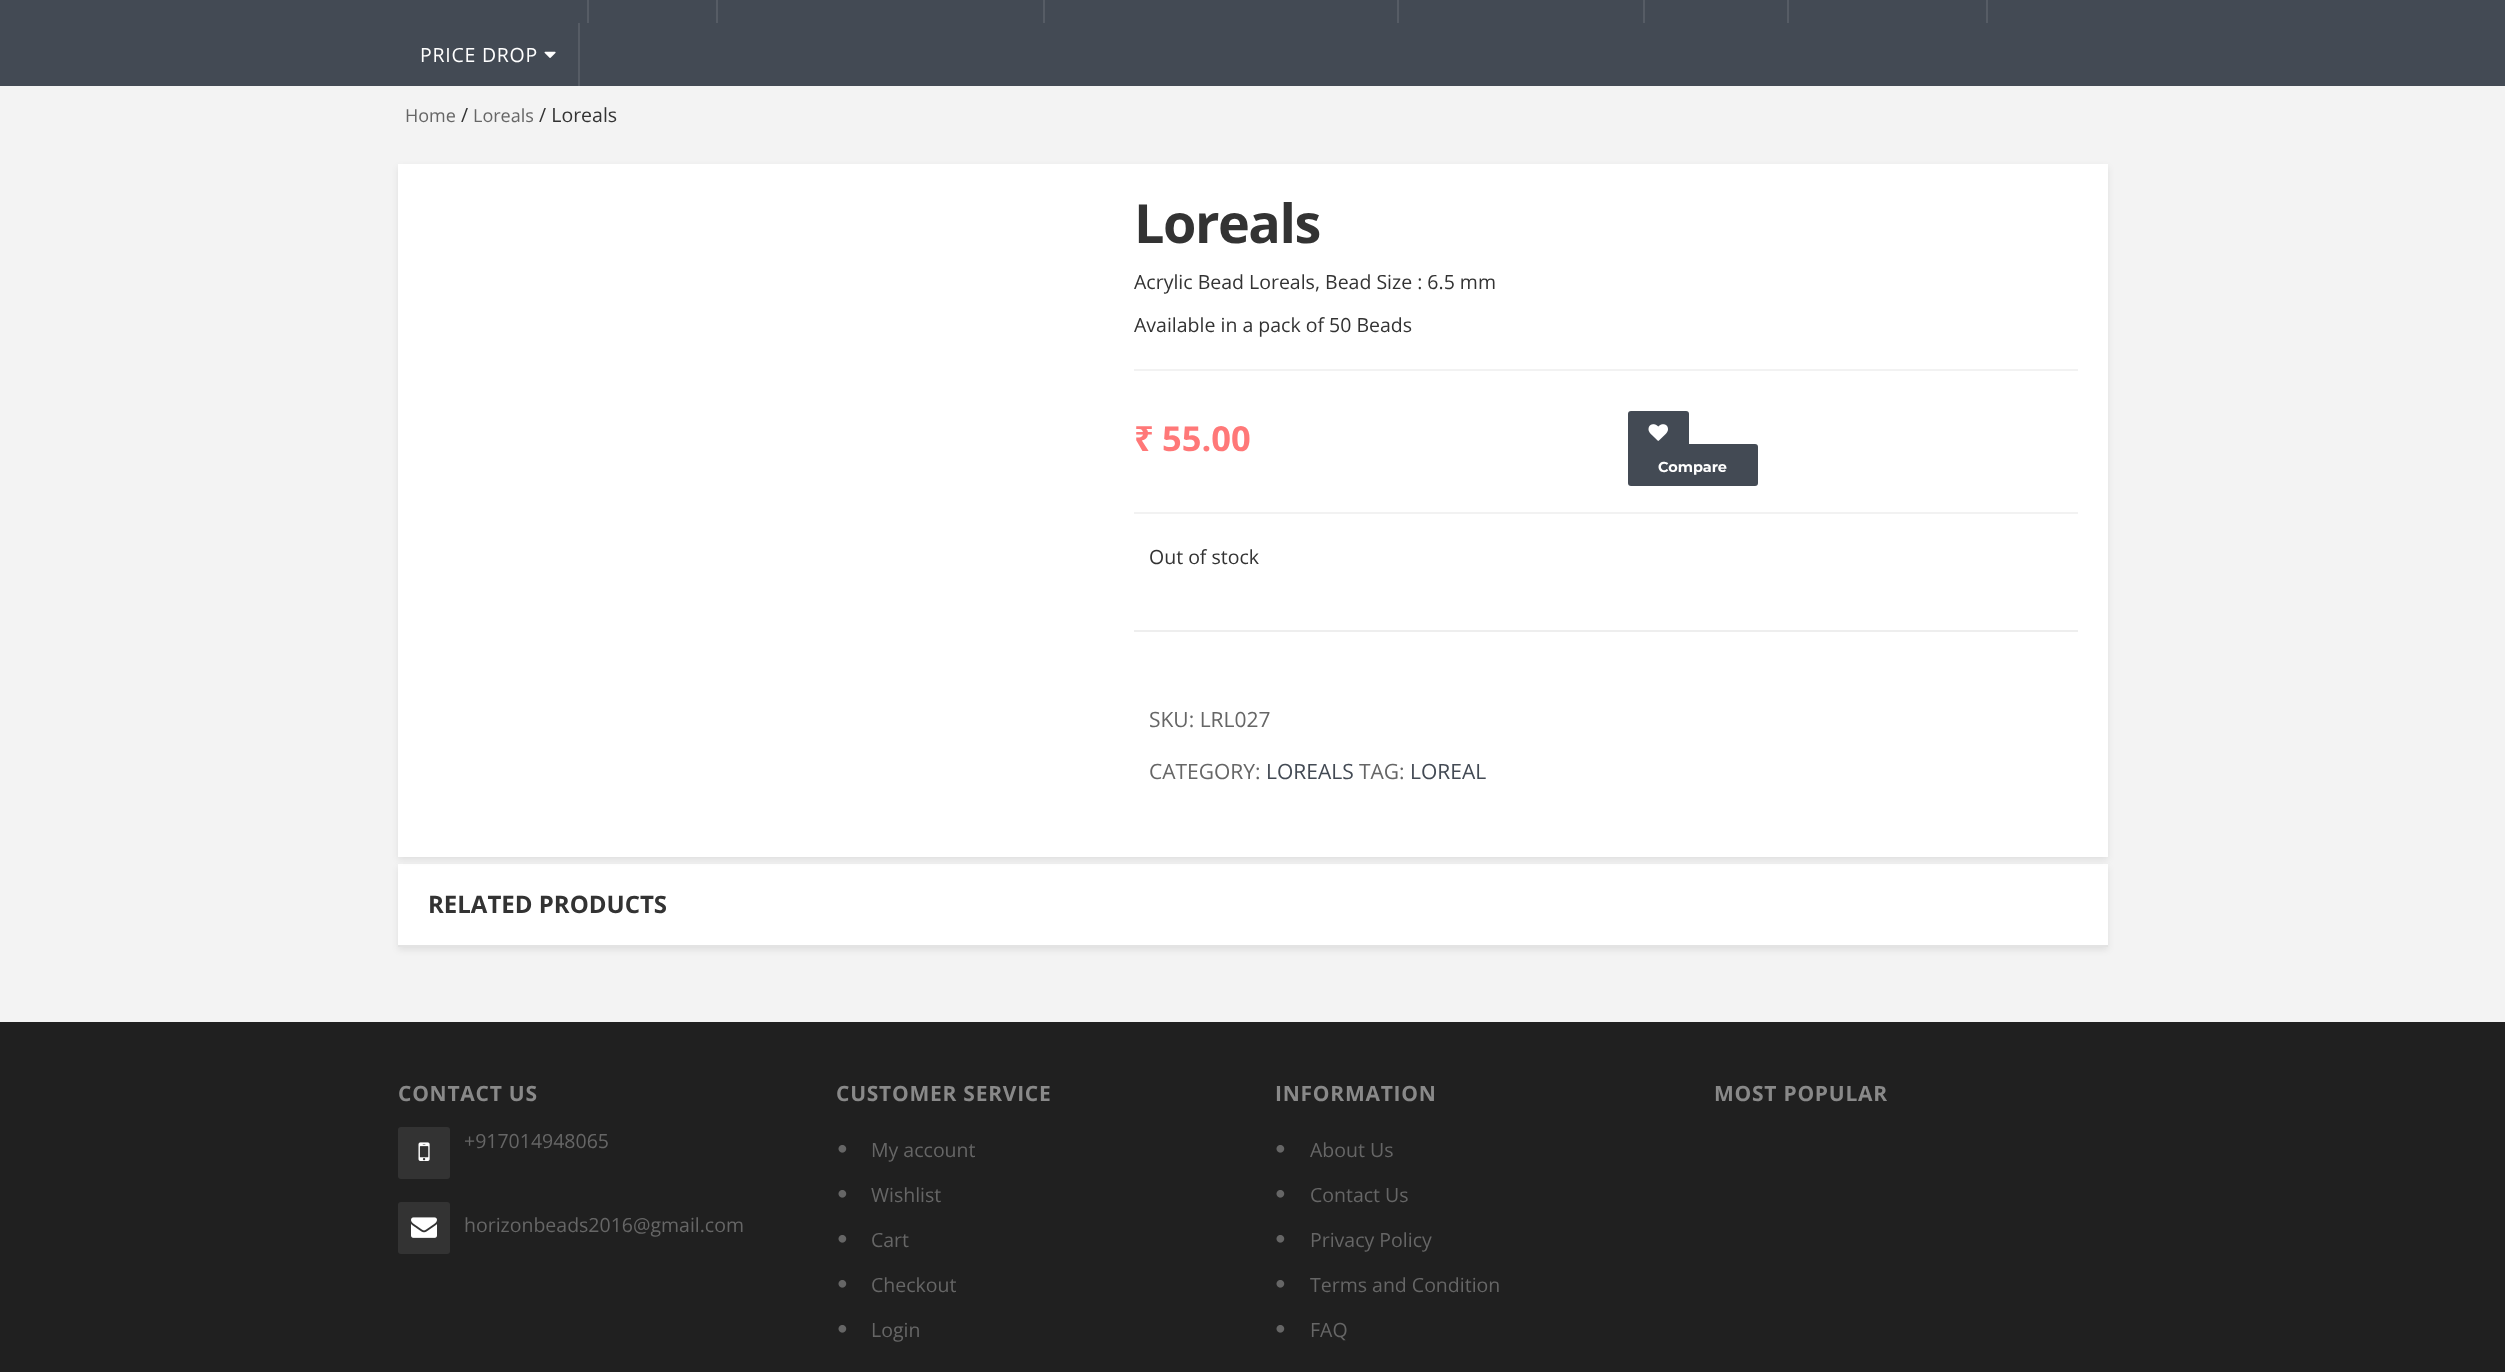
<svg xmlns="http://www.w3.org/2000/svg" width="2505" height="1372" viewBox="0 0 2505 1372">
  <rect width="100%" height="100%" fill="#f3f3f3"/>
  <path d="M0 0h2505v86H0z" fill="#434a54"/>
  <path d="M587 0h2v23H587z" fill="#565c65"/>
  <path d="M716 0h2v23H716z" fill="#565c65"/>
  <path d="M1043 0h2v23H1043z" fill="#565c65"/>
  <path d="M1397 0h2v23H1397z" fill="#565c65"/>
  <path d="M1643 0h2v23H1643z" fill="#565c65"/>
  <path d="M1787 0h2v23H1787z" fill="#565c65"/>
  <path d="M1986 0h2v23H1986z" fill="#565c65"/>
  <path d="M578 23h2v63H578z" fill="#565c65"/>
  <image x="544" y="51" width="12" height="7" href="img/1.png"/>
  <path d="M398 867h1710v83H398z" fill="#00000014" filter="blur(3px)"/>
  <path d="M398 864h1710v81H398z" fill="#fff"/>
  <path d="M398 167h1710v693H398z" fill="#00000014" filter="blur(3px)"/>
  <path d="M398 164h1710v693H398z" fill="#fff"/>
  <path d="M1134 369h944v2H1134z" fill="#f2f2f2"/>
  <path d="M1134 512h944v2H1134z" fill="#f2f2f2"/>
  <rect x="1628" y="411" width="61" height="42" rx="3" fill="#434a54"/>
  <image x="1648" y="424" width="20" height="17" href="img/2.png"/>
  <rect x="1628" y="444" width="130" height="42" rx="3" fill="#434a54"/>
  <path d="M1134 630h944v2H1134z" fill="#eee"/>
  <path d="M398 945h1710v2H398z" fill="#e3e3e3"/>
  <path d="M0 1022h2505v350H0z" fill="#202020"/>
  <rect x="398" y="1127" width="52" height="52" rx="3" fill="#333"/>
  <image x="418" y="1142" width="12" height="19" href="img/3.png"/>
  <rect x="398" y="1202" width="52" height="52" rx="3" fill="#333"/>
  <image x="411" y="1217" width="26" height="21" href="img/4.png"/>
  <image x="838" y="1145" width="9" height="8" href="img/5.png"/>
  <image x="838" y="1190" width="9" height="8" href="img/5.png"/>
  <image x="838" y="1235" width="9" height="8" href="img/5.png"/>
  <image x="838" y="1280" width="9" height="8" href="img/5.png"/>
  <image x="838" y="1325" width="9" height="8" href="img/5.png"/>
  <image x="1276" y="1145" width="9" height="8" href="img/5.png"/>
  <image x="1276" y="1190" width="9" height="8" href="img/5.png"/>
  <image x="1276" y="1235" width="9" height="8" href="img/5.png"/>
  <image x="1276" y="1280" width="9" height="8" href="img/5.png"/>
  <image x="1276" y="1325" width="9" height="8" href="img/5.png"/>
  <text x="420" y="62" font-family="Open Sans" font-size="19.5" letter-spacing="0.75" fill="#fff">PRICE DROP</text>
  <text x="405" y="122" font-family="Open Sans" font-size="18" fill="#666">Home</text>
  <text x="461" y="122" font-family="Open Sans" font-size="19.5" fill="#333">/</text>
  <text x="473" y="122" font-family="Open Sans" font-size="18" fill="#666">Loreals</text>
  <text x="539" y="122" font-family="Open Sans" font-size="19.5" fill="#333">/ Loreals</text>
  <text x="1134" y="243" font-family="Open Sans" font-size="54" font-weight="bold" letter-spacing="-1.5" fill="#333">Loreals</text>
  <g font-family="Open Sans" font-size="19.5" fill="#333">
    <text x="1134" y="289">Acrylic Bead Loreals, Bead Size : 6.5 mm</text>
    <text x="1134" y="332">Available in a pack of 50 Beads</text>
  </g>
  <text x="1134" y="451" font-family="Noto Sans" font-size="34.5" font-weight="bold" fill="#ff7878">₹</text>
  <text x="1162" y="451" font-family="Open Sans" font-size="34.5" font-weight="bold" fill="#ff7878">55.00</text>
  <text x="1658" y="472" font-family="Montserrat" font-size="14.5" font-weight="bold" fill="#fff">Compare</text>
  <text x="1149" y="564" font-family="Open Sans" font-size="19.5" fill="#333">Out of stock</text>
  <g font-family="Open Sans" font-size="21" fill="#666">
    <text x="1149" y="727">SKU: LRL027</text>
    <text x="1149" y="779">CATEGORY:</text>
  </g>
  <text x="1266" y="779" font-family="Open Sans" font-size="21" fill="#434a54">LOREALS</text>
  <text x="1359" y="779" font-family="Open Sans" font-size="21" fill="#666">TAG:</text>
  <text x="1410" y="779" font-family="Open Sans" font-size="21" fill="#434a54">LOREAL</text>
  <text x="428" y="913" font-family="Open Sans" font-size="24" font-weight="bold" fill="#333">RELATED PRODUCTS</text>
  <text x="398" y="1101" font-family="Open Sans" font-size="21" font-weight="bold" letter-spacing="0.75" fill="#898989">CONTACT US</text>
  <g font-family="Open Sans" font-size="19.5" fill="#666">
    <text x="464" y="1148">+917014948065</text>
    <text x="464" y="1232">horizonbeads2016@gmail.com</text>
  </g>
  <text x="836" y="1101" font-family="Open Sans" font-size="21" font-weight="bold" letter-spacing="0.75" fill="#898989">CUSTOMER SERVICE</text>
  <g font-family="Open Sans" font-size="19.5" fill="#666">
    <text x="871" y="1157">My account</text>
    <text x="871" y="1202">Wishlist</text>
    <text x="871" y="1247">Cart</text>
    <text x="871" y="1292">Checkout</text>
    <text x="871" y="1337">Login</text>
  </g>
  <text x="1275" y="1101" font-family="Open Sans" font-size="21" font-weight="bold" letter-spacing="0.75" fill="#898989">INFORMATION</text>
  <g font-family="Open Sans" font-size="19.5" fill="#666">
    <text x="1310" y="1157">About Us</text>
    <text x="1310" y="1202">Contact Us</text>
    <text x="1310" y="1247">Privacy Policy</text>
    <text x="1310" y="1292">Terms and Condition</text>
    <text x="1310" y="1337">FAQ</text>
  </g>
  <text x="1714" y="1101" font-family="Open Sans" font-size="21" font-weight="bold" letter-spacing="0.75" fill="#898989">MOST POPULAR</text>
</svg>
